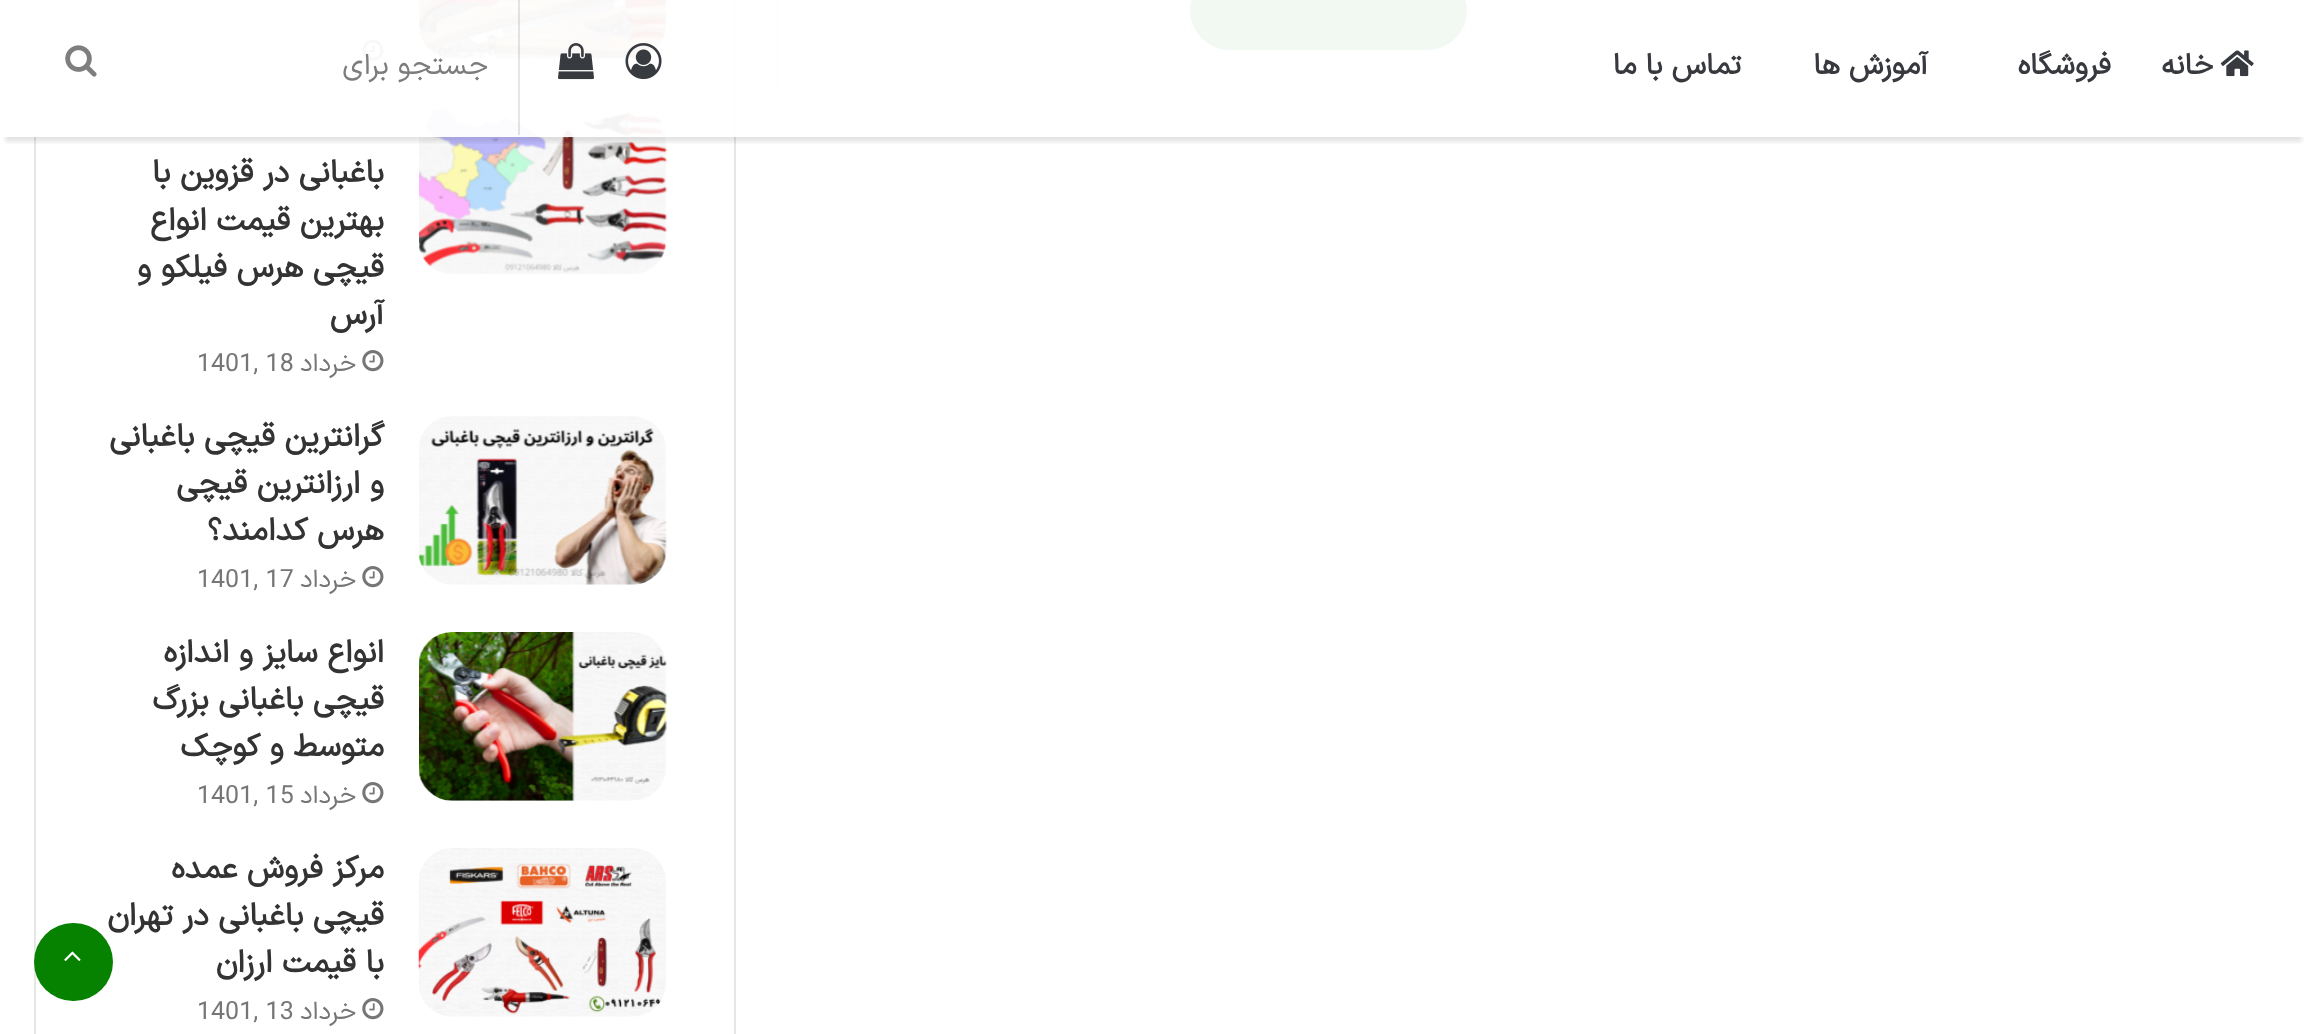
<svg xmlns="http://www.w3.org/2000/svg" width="2305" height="1034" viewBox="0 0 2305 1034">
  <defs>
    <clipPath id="clip1"><path d="M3 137h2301v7H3z"/></clipPath>
  </defs>
  <rect width="100%" height="100%" fill="#fff"/>
  <rect x="777" y="-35" width="1495" height="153" rx="33" fill="none" stroke="#e6e6e6" stroke-width="2"/>
  <rect x="1190" y="-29" width="277" height="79" rx="39.5" fill="#068200"/>
  <path d="M35 -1h700v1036H35z" fill="none" stroke="#e6e6e6" stroke-width="2"/>
  <image x="419" y="0" width="248" height="59" href="img/5.png"/>
  <image x="362" y="39" width="22" height="22" href="img/6.png"/>
  <image x="419" y="106" width="248" height="168" href="img/7.png"/>
  <g clip-path="url(#clip1)">
    <path d="M5 14h2297v128H5z" fill="#0000001a" filter="blur(2px)"/>
  </g>
  <path d="M34 0h2239v137H34z" fill="#fffffff2"/>
  <image x="2220" y="50" width="34" height="27" href="img/1.png"/>
  <image x="625" y="43" width="37" height="37" href="img/2.png"/>
  <image x="558" y="43" width="36" height="37" href="img/3.png"/>
  <path d="M518 0h2v135H518z" fill="#0000001a"/>
  <image x="65" y="45" width="32" height="32" href="img/4.png"/>
  <image x="362" y="350" width="22" height="22" href="img/8.png"/>
  <image x="419" y="416" width="248" height="169" href="img/9.png"/>
  <image x="362" y="566" width="22" height="22" href="img/8.png"/>
  <image x="419" y="632" width="248" height="169" href="img/10.png"/>
  <image x="362" y="782" width="22" height="22" href="img/8.png"/>
  <image x="418" y="848" width="248" height="169" href="img/11.png"/>
  <image x="362" y="998" width="22" height="22" href="img/8.png"/>
  <g font-family="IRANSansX" font-size="29.25" font-weight="bold" direction="rtl" fill="#37393e">
    <text x="2213" y="74">خانه</text>
    <text x="2111" y="74">فروشگاه</text>
    <text x="1928" y="74">آموزش ها</text>
    <text x="1741" y="74">تماس با ما</text>
  </g>
  <text x="488" y="74" font-family="IRANSansX" font-size="29.25" direction="rtl" fill="#7c7c7c">جستجو برای</text>
  <g font-family="IRANSansX" font-size="31.5" font-weight="bold" direction="rtl" fill="#333">
    <text x="384" y="182">باغبانی در قزوین با</text>
    <text x="384" y="230">بهترین قیمت انواع</text>
    <text x="384" y="277">قیچی هرس فیلکو و</text>
    <text x="384" y="324">آرس</text>
  </g>
  <text x="356" y="371" font-family="IRANSansX" font-size="25" direction="rtl" fill="#767676">خرداد</text>
  <text x="197" y="371" font-family="IRANSansX" font-size="25" fill="#767676">1401, 18</text>
  <g font-family="IRANSansX" font-size="31.5" font-weight="bold" direction="rtl" fill="#333">
    <text x="384" y="446">گرانترین قیچی باغبانی</text>
    <text x="384" y="493">و ارزانترین قیچی</text>
    <text x="384" y="540">هرس کدامند؟</text>
  </g>
  <text x="356" y="587" font-family="IRANSansX" font-size="25" direction="rtl" fill="#767676">خرداد</text>
  <text x="197" y="587" font-family="IRANSansX" font-size="25" fill="#767676">1401, 17</text>
  <g font-family="IRANSansX" font-size="31.5" font-weight="bold" direction="rtl" fill="#333">
    <text x="384" y="662">انواع سایز و اندازه</text>
    <text x="384" y="709">قیچی باغبانی بزرگ</text>
    <text x="384" y="756">متوسط و کوچک</text>
  </g>
  <text x="356" y="803" font-family="IRANSansX" font-size="25" direction="rtl" fill="#767676">خرداد</text>
  <text x="197" y="803" font-family="IRANSansX" font-size="25" fill="#767676">1401, 15</text>
  <g font-family="IRANSansX" font-size="31.5" font-weight="bold" direction="rtl" fill="#333">
    <text x="384" y="878">مرکز فروش عمده</text>
    <text x="384" y="925">قیچی باغبانی در تهران</text>
    <text x="384" y="972">با قیمت ارزان</text>
  </g>
  <text x="356" y="1019" font-family="IRANSansX" font-size="25" direction="rtl" fill="#767676">خرداد</text>
  <text x="197" y="1019" font-family="IRANSansX" font-size="25" fill="#767676">1401, 13</text>
  <rect x="34" y="923" width="79" height="78" rx="39" fill="#068200"/>
  <image x="64" y="951" width="17" height="10" href="img/12.png"/>
</svg>
